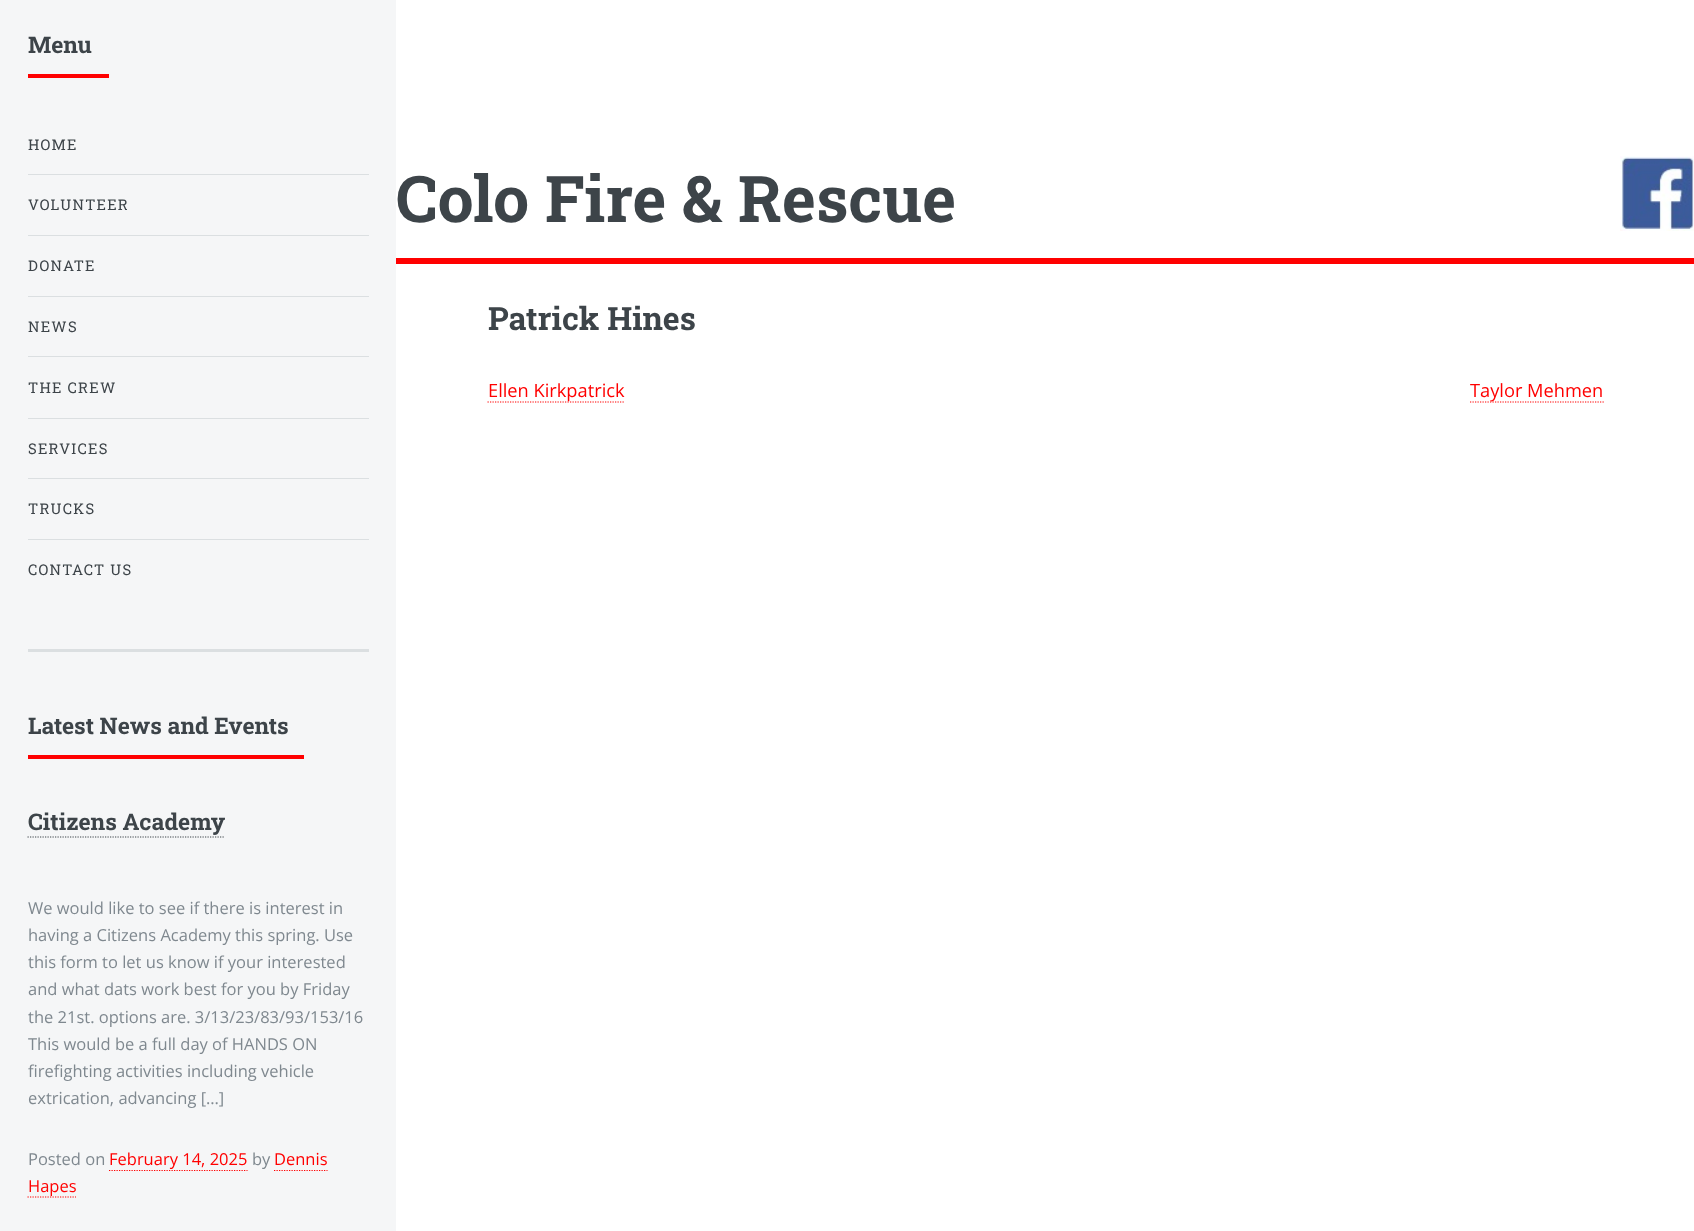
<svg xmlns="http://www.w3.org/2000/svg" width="1694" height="1231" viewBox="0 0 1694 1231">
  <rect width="100%" height="100%" fill="#fff"/>
  <path d="M0 0h396v1231H0z" fill="#f5f6f7"/>
  <path d="M28 649h341v3H28z" fill="#dbdfe1"/>
  <path d="M28 74h81v4H28z" fill="#f00"/>
  <path d="M28 174h341v1H28z" fill="#dbdfe1"/>
  <path d="M28 235h341v1H28z" fill="#dbdfe1"/>
  <path d="M28 296h341v1H28z" fill="#dbdfe1"/>
  <path d="M28 356h341v1H28z" fill="#dbdfe1"/>
  <path d="M28 418h341v1H28z" fill="#dbdfe1"/>
  <path d="M28 478h341v1H28z" fill="#dbdfe1"/>
  <path d="M28 539h341v1H28z" fill="#dbdfe1"/>
  <path d="M28 755h276v4H28z" fill="#f00"/>
  <path d="M27.5 837H224" fill="none" stroke="#3d4449" stroke-width="1.2" stroke-dasharray="1.25 1.25"/>
  <path d="M109 1170.5H247.5" fill="none" stroke="#f00" stroke-width="1.2" stroke-dasharray="1.25 1.25"/>
  <path d="M274 1170.5H327.5" fill="none" stroke="#f00" stroke-width="1.2" stroke-dasharray="1.25 1.25"/>
  <path d="M27.5 1197H76" fill="none" stroke="#f00" stroke-width="1.2" stroke-dasharray="1.25 1.25"/>
  <path d="M396 258h1298v6H396z" fill="#f00"/>
  <image x="1620" y="156" width="74" height="75" href="img/1.png"/>
  <path d="M487.5 402H625" fill="none" stroke="#f00" stroke-width="1.2" stroke-dasharray="1.25 1.25"/>
  <path d="M1470 402H1604" fill="none" stroke="#f00" stroke-width="1.2" stroke-dasharray="1.25 1.25"/>
  <text x="28" y="53" font-family="Roboto Slab" font-size="23" font-weight="bold" fill="#3d4449">Menu</text>
  <g font-family="Roboto Slab" font-size="14.75" letter-spacing="1.25" fill="#3d4449">
    <text x="28" y="150">HOME</text>
    <text x="28" y="210">VOLUNTEER</text>
    <text x="28" y="271">DONATE</text>
    <text x="28" y="332">NEWS</text>
    <text x="28" y="393">THE CREW</text>
    <text x="28" y="454">SERVICES</text>
    <text x="28" y="514">TRUCKS</text>
    <text x="28" y="575">CONTACT US</text>
  </g>
  <g font-family="Roboto Slab" font-size="23" font-weight="bold" fill="#3d4449">
    <text x="28" y="734">Latest News and Events</text>
    <text x="28" y="830">Citizens Academy</text>
  </g>
  <g font-family="Open Sans" font-size="16.5" fill="#7f888f">
    <text x="28" y="914">We would like to see if there is interest in</text>
    <text x="28" y="941">having a Citizens Academy this spring. Use</text>
    <text x="28" y="968">this form to let us know if your interested</text>
    <text x="28" y="995">and what dats work best for you by Friday</text>
    <text x="28" y="1023">the 21st. options are. 3/13/23/83/93/153/16</text>
    <text x="28" y="1050">This would be a full day of HANDS ON</text>
    <text x="28" y="1077">firefighting activities including vehicle</text>
    <text x="28" y="1104">extrication, advancing […]</text>
    <text x="28" y="1165">Posted on</text>
  </g>
  <text x="109" y="1165" font-family="Open Sans" font-size="16.5" fill="#f00">February 14, 2025</text>
  <text x="252" y="1165" font-family="Open Sans" font-size="16.5" fill="#7f888f">by</text>
  <g font-family="Open Sans" font-size="16.5" fill="#f00">
    <text x="274" y="1165">Dennis</text>
    <text x="28" y="1192">Hapes</text>
  </g>
  <text x="396" y="222" font-family="Roboto Slab" font-size="64.25" font-weight="bold" fill="#3d4449">Colo Fire &amp; Rescue</text>
  <text x="488" y="330" font-family="Roboto Slab" font-size="32" font-weight="bold" fill="#3d4449">Patrick Hines</text>
  <g font-family="Open Sans" font-size="18.25" fill="#f00">
    <text x="488" y="397">Ellen Kirkpatrick</text>
    <text x="1470" y="397">Taylor Mehmen</text>
  </g>
</svg>
